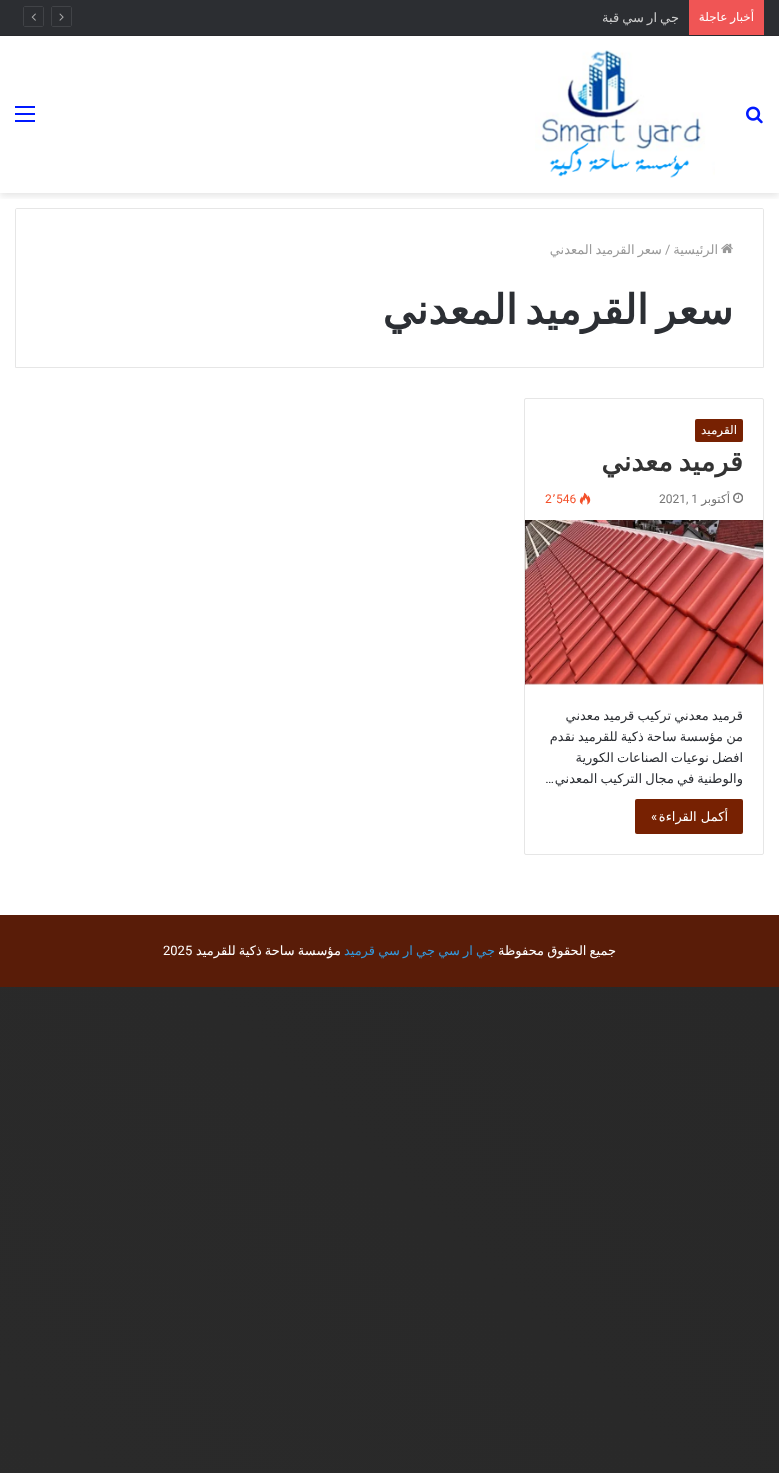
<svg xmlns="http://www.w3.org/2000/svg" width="779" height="1473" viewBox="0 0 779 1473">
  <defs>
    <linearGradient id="g1" gradientUnits="userSpaceOnUse" x1="-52" y1="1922" x2="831" y2="1039"><stop offset="0" stop-color="#2b2b2b"/><stop offset="1" stop-color="#282828"/></linearGradient>
    <clipPath id="clip1"><path d="M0 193h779v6H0z"/></clipPath>
    <clipPath id="clip2"><path d="M601 0h78v35H601z"/></clipPath>
  </defs>
  <rect width="100%" height="100%" fill="#fff"/>
  <path d="M0 987h779v486H0z" fill="url(#g1)"/>
  <g clip-path="url(#clip1)">
    <path d="M0 39h779v157H0z" fill="#0000001a" filter="blur(3.5px)"/>
  </g>
  <path d="M0 0h779v35H0z" fill="#2c2e32"/>
  <path d="M0 35h779v1H0z" fill="#28292d"/>
  <path d="M689 0h75v35H689z" fill="#f05555"/>
  <path d="M70 26.5H53C52 26.5 51.5 26 51.5 25V8C51.5 7 52 6.5 53 6.5H70C71 6.5 71.5 7 71.5 8V25C71.5 26 71 26.5 70 26.5Z" fill="none" stroke="#414347"/>
  <image x="59" y="13" width="5" height="8" href="img/1.png"/>
  <path d="M42 26.5H25C24 26.5 23.5 26 23.5 25V8C23.5 7 24 6.5 25 6.5H42C43 6.5 43.5 7 43.5 8V25C43.5 26 43 26.5 42 26.5Z" fill="none" stroke="#414347"/>
  <image x="31" y="13" width="5" height="8" href="img/2.png"/>
  <image x="746" y="106" width="17" height="18" href="img/3.png"/>
  <image x="535" y="50" width="180" height="128" href="img/4.png"/>
  <path d="M15 113h20v2H15z" fill="#0019ff"/>
  <path d="M15 106h20v2H15z" fill="#0019ff"/>
  <path d="M15 120h20v2H15z" fill="#0019ff"/>
  <path d="M17 208.5H762C763 208.5 763.5 209 763.5 210V367.5H15.5V210C15.5 209 16 208.5 17 208.5Z" fill="none" stroke="#e6e6e6"/>
  <image x="721" y="243" width="12" height="11" href="img/5.png"/>
  <rect x="524.5" y="398.5" width="239" height="456" rx="1.5" fill="none" stroke="#e6e6e6"/>
  <rect x="695" y="419" width="48" height="23" rx="2" fill="#772102"/>
  <image x="733" y="492" width="10" height="11" href="img/6.png"/>
  <image x="579" y="492" width="12" height="13" href="img/7.png"/>
  <image x="525" y="520" width="238" height="165" href="img/8.png"/>
  <rect x="635" y="799" width="108" height="35" rx="2" fill="#772102"/>
  <path d="M0 915h779v72H0z" fill="#591c08"/>
  <text x="754" y="21" word-spacing="-1" font-family="DejaVu Sans" font-size="12" direction="rtl" fill="#fff">أخبار عاجلة</text>
  <g clip-path="url(#clip2)">
    <text x="679" y="22" word-spacing="-1" font-family="DejaVu Sans" font-size="13" direction="rtl" fill="#ccc">جي ار سي قبة</text>
  </g>
  <text x="718" y="254" font-family="DejaVu Sans" font-size="13" direction="rtl" fill="#999">الرئيسية</text>
  <text x="665" y="254" font-family="Roboto" font-size="13" fill="#999">/</text>
  <text x="662" y="254" word-spacing="-1" font-family="DejaVu Sans" font-size="13" direction="rtl" fill="#999">سعر القرميد المعدني</text>
  <text x="733" y="324" word-spacing="-5" font-family="DejaVu Sans" font-size="41" font-weight="bold" direction="rtl" fill="#2c2f34">سعر القرميد المعدني</text>
  <text x="737" y="434" font-family="DejaVu Sans" font-size="12" direction="rtl" fill="#fff">القرميد</text>
  <text x="743" y="471" word-spacing="-3" font-family="DejaVu Sans" font-size="27" font-weight="bold" direction="rtl" fill="#333">قرميد معدني</text>
  <text x="730" y="503" font-family="DejaVu Sans" font-size="12" direction="rtl" fill="#767676">أكتوبر</text>
  <text x="659" y="503" font-family="Roboto" font-size="12" fill="#767676">2021, 1</text>
  <text x="556" y="503" font-family="Roboto" font-size="12" fill="#f3502a">546</text>
  <text x="552" y="503" font-family="DejaVu Sans" font-size="12" fill="#f3502a">٬</text>
  <text x="545" y="503" font-family="Roboto" font-size="12" fill="#f3502a">2</text>
  <g font-family="DejaVu Sans" font-size="13" direction="rtl" fill="#2c2f34">
    <text x="743" y="720" word-spacing="-1">قرميد معدني تركيب قرميد معدني</text>
    <text x="743" y="741" word-spacing="-1">من مؤسسة ساحة ذكية للقرميد نقدم</text>
    <text x="743" y="762" word-spacing="-1">افضل نوعيات الصناعات الكورية</text>
    <text x="743" y="783" word-spacing="-1">والوطنية في مجال التركيب المعدني</text>
  </g>
  <text x="554" y="783" font-family="Roboto" font-size="13" direction="rtl" fill="#2c2f34">…</text>
  <text x="728" y="821" font-family="DejaVu Sans" font-size="13" direction="rtl" fill="#fff">أكمل القراءة</text>
  <text x="657" y="821" font-family="Roboto" font-size="13" direction="rtl" fill="#fff">»</text>
  <text x="616" y="955" word-spacing="-1" font-family="DejaVu Sans" font-size="13" direction="rtl" fill="#fff">جميع الحقوق محفوظة</text>
  <g font-family="DejaVu Sans" font-size="13" direction="rtl" fill="#3498db">
    <text x="495" y="955" word-spacing="-1">جي ار سي</text>
    <text x="435" y="955" word-spacing="-1">جي ار سي</text>
    <text x="375" y="955">قرميد</text>
  </g>
  <text x="341" y="955" word-spacing="-1" font-family="DejaVu Sans" font-size="13" direction="rtl" fill="#fff">مؤسسة ساحة ذكية للقرميد</text>
  <text x="163" y="955" font-family="Roboto" font-size="13" fill="#fff">2025</text>
</svg>
